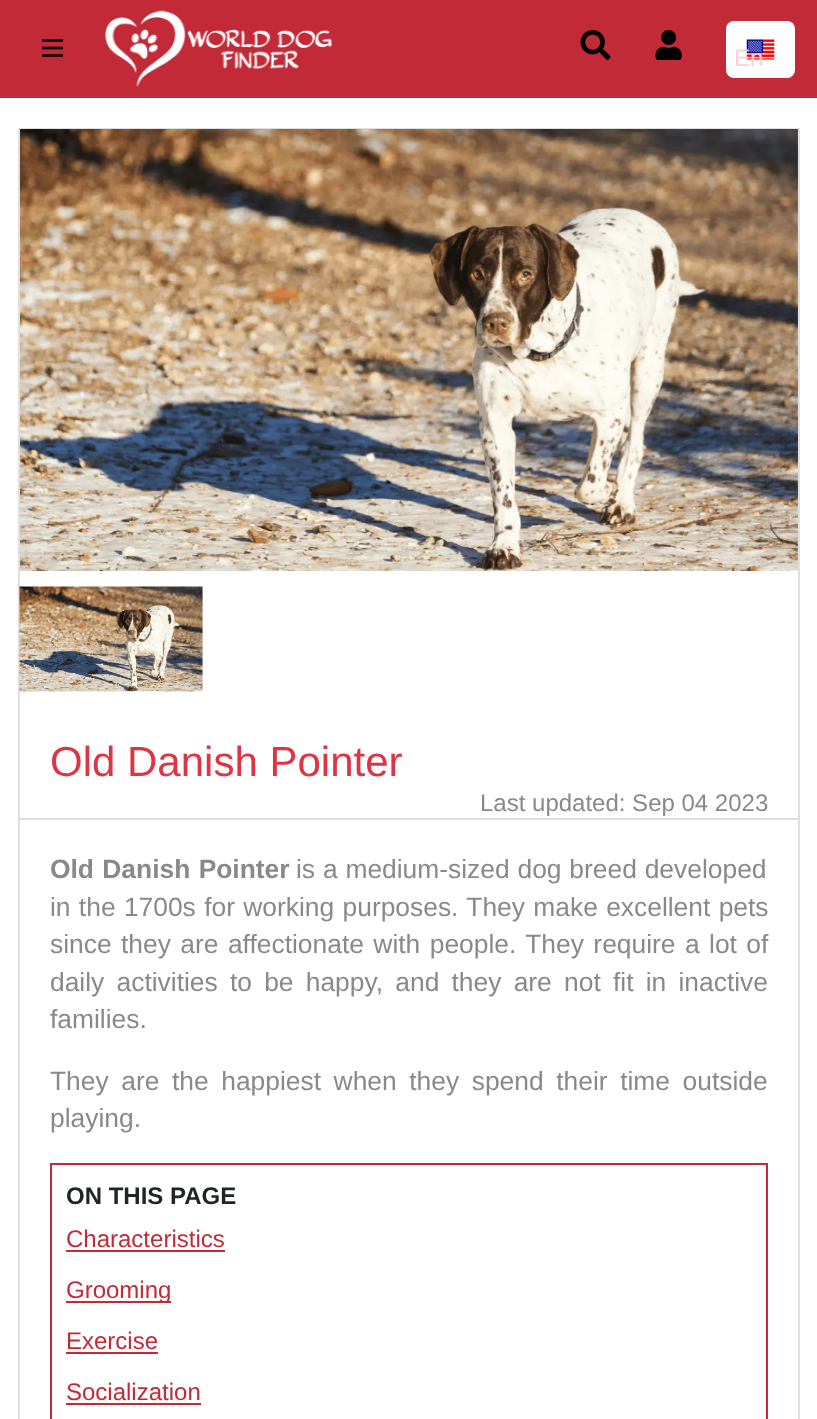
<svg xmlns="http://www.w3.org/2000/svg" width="817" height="1419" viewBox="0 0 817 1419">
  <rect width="100%" height="100%" fill="#fff"/>
  <path d="M0 0h817v98H0z" fill="#c22a37"/>
  <image x="42" y="39" width="21" height="18" href="img/1.png"/>
  <image x="105" y="10" width="227" height="77" href="img/2.png"/>
  <image x="580" y="30" width="31" height="30" href="img/3.png"/>
  <image x="655" y="30" width="27" height="30" href="img/4.png"/>
  <rect x="726" y="21" width="69" height="57" rx="8" fill="#fff"/>
  <image x="746" y="39" width="29" height="21" href="img/5.png"/>
  <path d="M775.5 55L781.5 61L787.5 55" fill="none" stroke="#fff" stroke-width="3"/>
  <path d="M19 129h780v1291H19z" fill="none" stroke="#dfdfdf" stroke-width="2"/>
  <path d="M20 129h778v1H20z" fill="#fff"/>
  <image x="20" y="129" width="778" height="442" href="img/6.png"/>
  <image x="19" y="586" width="184" height="106" href="img/7.png"/>
  <path d="M20 818h778v2H20z" fill="#dfdfdf"/>
  <path d="M51 1164h716v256H51z" fill="none" stroke="#c22a37" stroke-width="2"/>
  <path d="M66 1250h159v2H66z" fill="#c22a37"/>
  <path d="M66 1301h105v2H66z" fill="#c22a37"/>
  <path d="M66 1352h92v2H66z" fill="#c22a37"/>
  <path d="M66 1403h135v2H66z" fill="#c22a37"/>
  <text x="734" y="66" font-family="Liberation Sans" font-size="24" fill="#f9d2d5">En</text>
  <text x="50" y="776" font-family="Liberation Sans" font-size="42" fill="#dc3545">Old Danish Pointer</text>
  <text x="480" y="811" font-family="Liberation Sans" font-size="24" fill="#898989">Last updated: Sep 04 2023</text>
  <text x="50" y="878" word-spacing="1" font-family="Liberation Sans" font-size="26.4" font-weight="bold" fill="#898989">Old Danish Pointer</text>
  <g font-family="Liberation Sans" font-size="26.4" fill="#898989">
    <text x="296" y="878" word-spacing="0.5">is a medium-sized dog breed developed</text>
    <text x="50" y="916" word-spacing="1">in the 1700s for working purposes. They make excellent pets</text>
    <text x="50" y="953" word-spacing="2.1">since they are affectionate with people. They require a lot of</text>
    <text x="50" y="991" word-spacing="4.9">daily activities to be happy, and they are not fit in inactive</text>
    <text x="50" y="1028">families.</text>
    <text x="50" y="1090" word-spacing="5.25">They are the happiest when they spend their time outside</text>
    <text x="50" y="1127">playing.</text>
  </g>
  <text x="66" y="1204" font-family="Liberation Sans" font-size="24" font-weight="bold" fill="#212529">ON THIS PAGE</text>
  <g font-family="Liberation Sans" font-size="24" fill="#c22a37">
    <text x="66" y="1247">Characteristics</text>
    <text x="66" y="1298">Grooming</text>
    <text x="66" y="1349">Exercise</text>
    <text x="66" y="1400">Socialization</text>
  </g>
</svg>
